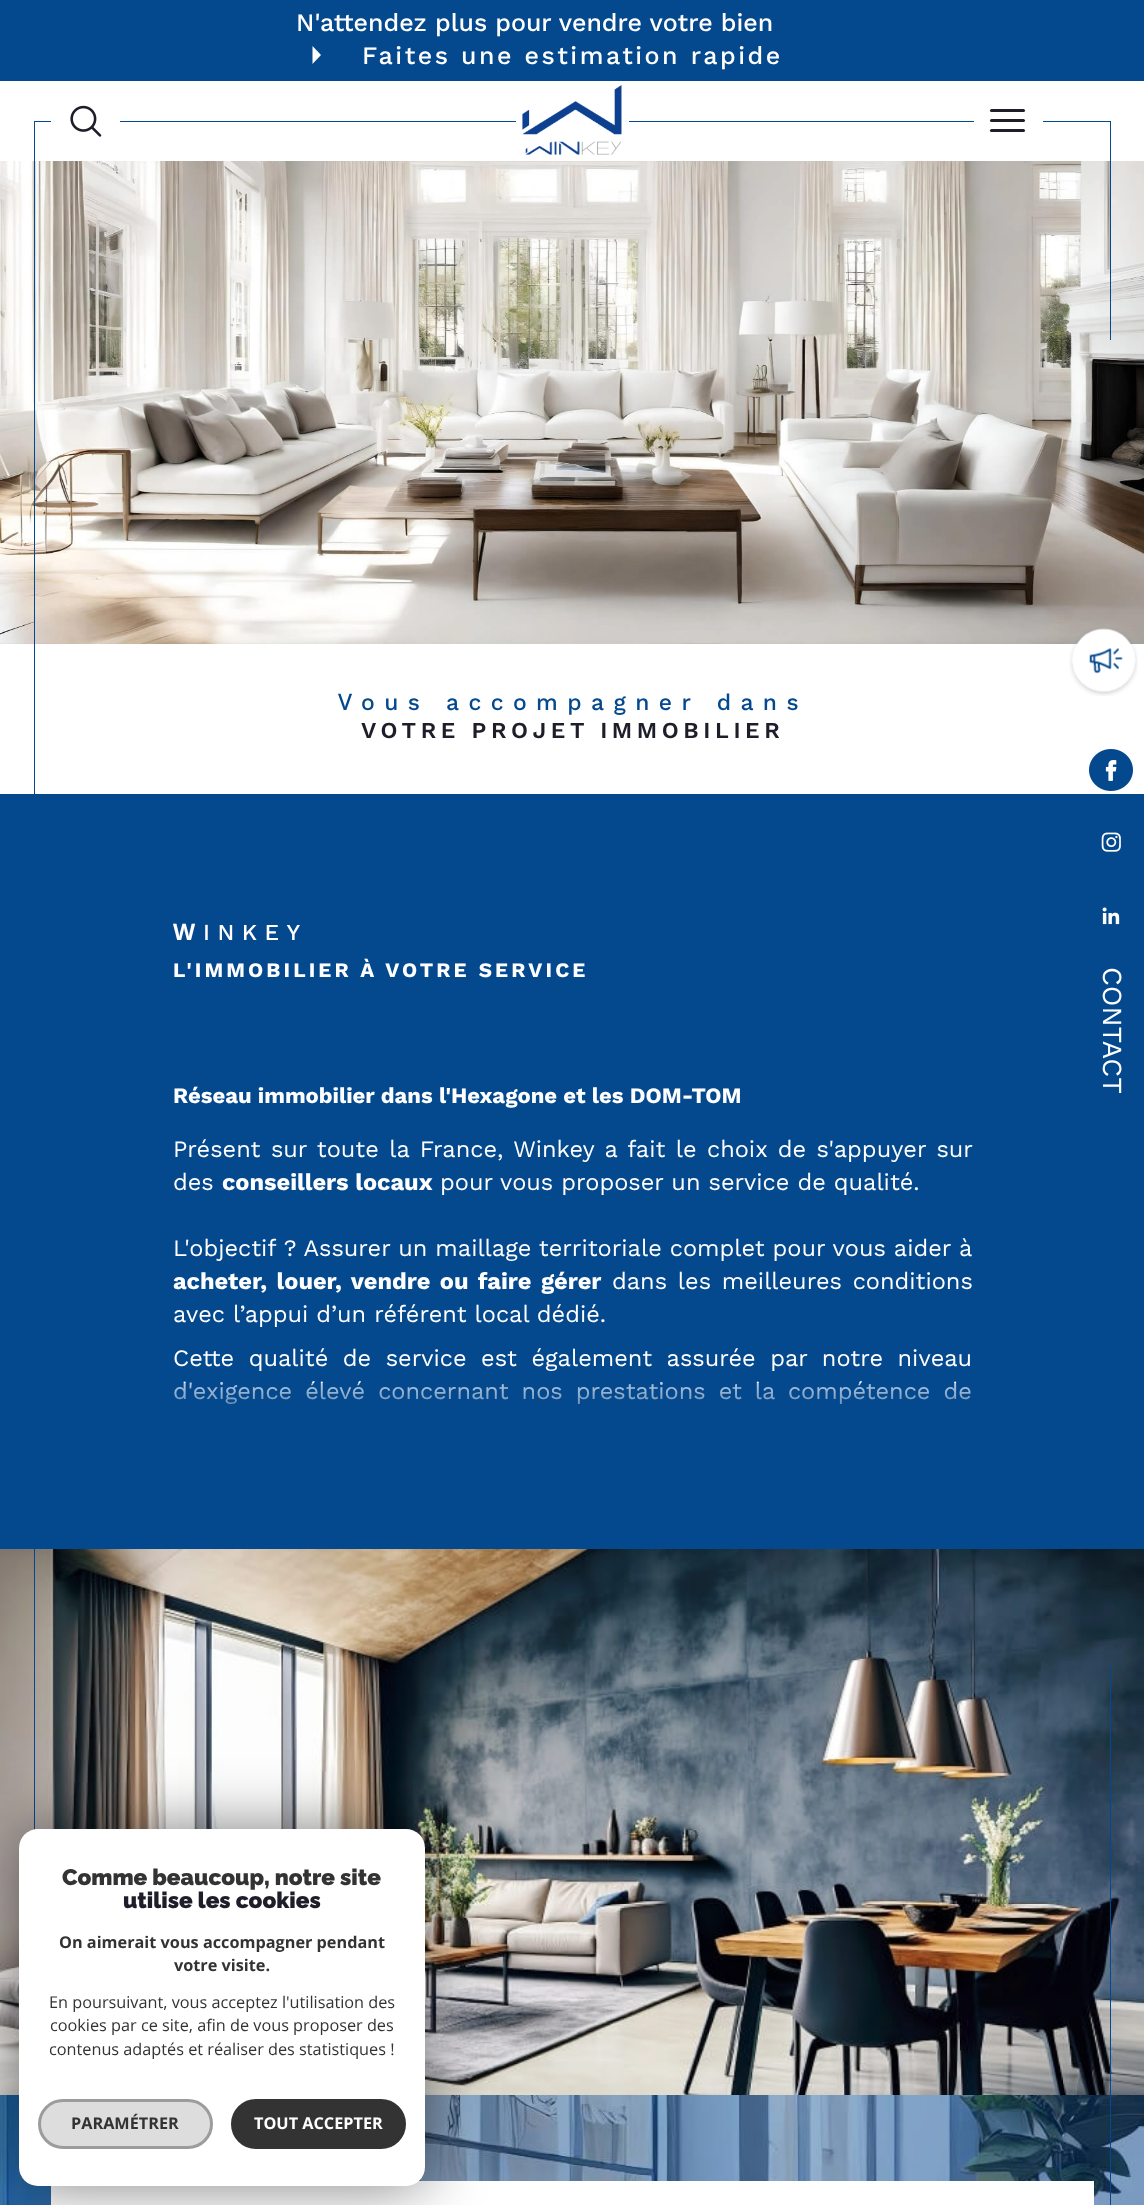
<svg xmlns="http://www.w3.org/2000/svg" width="1144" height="2205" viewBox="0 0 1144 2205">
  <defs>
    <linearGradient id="g1" gradientUnits="userSpaceOnUse" x1="573" y1="1383" x2="573" y2="1434"><stop offset="0" stop-color="#04488e" stop-opacity="0.3"/><stop offset="1" stop-color="#04488e"/></linearGradient>
  </defs>
  <rect width="100%" height="100%" fill="#fff"/>
  <path d="M0 0h1144v81H0z" fill="#04488e"/>
  <path d="M312.5 64V46L321 55Z" fill="#fff"/>
  <path d="M34 121h1077v1H34z" fill="#04488e"/>
  <path d="M51 121h69v1H51z" fill="#fff"/>
  <image x="70" y="105" width="32" height="32" href="img/1.png"/>
  <path d="M516 121h113v1H516z" fill="#fff"/>
  <image x="522" y="85" width="100" height="70" href="img/2.png"/>
  <path d="M974 121h69v1H974z" fill="#fff"/>
  <rect x="990" y="119" width="35" height="3" rx="1.5" fill="#1e1e2a"/>
  <rect x="990" y="109" width="35" height="3" rx="1.5" fill="#1e1e2a"/>
  <rect x="990" y="129" width="35" height="3" rx="1.5" fill="#1e1e2a"/>
  <image x="0" y="643" width="1144" height="1" href="img/8.png"/>
  <image x="0" y="161" width="1144" height="483" href="img/3.png"/>
  <path d="M0 794h1144v755H0z" fill="#04488e"/>
  <image x="0" y="1549" width="1144" height="546" href="img/9.png"/>
  <path d="M34 121h1v1709H34z" fill="#04488e"/>
  <path d="M1110 121h1v219H1110z" fill="#04488e"/>
  <image x="1089" y="749" width="44" height="42" href="img/4.png"/>
  <image x="1101" y="832" width="20" height="20" href="img/5.png"/>
  <image x="1102" y="907" width="18" height="18" href="img/6.png"/>
  <image x="0" y="2095" width="1144" height="110" href="img/10.png"/>
  <path d="M1110 1665h1v540H1110z" fill="#04488e"/>
  <image x="1069" y="628" width="69" height="68" href="img/7.png"/>
  <path d="M51 2181h1043v24H51z" fill="#fff"/>
  <rect x="19" y="1829" width="406" height="357" rx="19" fill="#00000080" filter="blur(31px)"/>
  <rect x="19" y="1829" width="406" height="357" rx="19" fill="#fff"/>
  <rect x="39.5" y="2100.5" width="172" height="47" rx="23.5" fill="#ddd" stroke="#9c9c9c" stroke-width="3"/>
  <rect x="232.5" y="2100.5" width="172" height="47" rx="23.5" fill="#333" stroke="#333" stroke-width="3"/>
  <text x="296" y="31" font-family="Work Sans" font-size="25" font-weight="500" fill="#fff">N'attendez plus pour vendre votre bien</text>
  <text x="362" y="64" font-family="Work Sans" font-size="25" font-weight="500" letter-spacing="2.5" fill="#fff">Faites une estimation rapide</text>
  <text x="1103" y="967" transform="rotate(90 1103 967)" font-family="Work Sans" font-size="27.5" fill="#fff">CONTACT</text>
  <text x="338" y="710" font-family="Noto Sans" font-size="22.9" font-weight="500" letter-spacing="9.4" fill="#04488e">V</text>
  <text x="361" y="710" font-family="Work Sans" font-size="22.9" font-weight="500" letter-spacing="9.4" fill="#04488e">ous accompagner dans</text>
  <text x="361" y="738" font-family="Work Sans" font-size="22.9" font-weight="600" letter-spacing="4.6" fill="#1e1e2a">VOTRE PROJET IMMOBILIER</text>
  <text x="173" y="940" font-family="Noto Sans" font-size="22.9" font-weight="bold" letter-spacing="7.5" fill="#fff">W</text>
  <text x="203" y="940" font-family="Work Sans" font-size="22.9" font-weight="500" letter-spacing="7.5" fill="#fff">INKEY</text>
  <text x="173" y="977" font-family="Work Sans" font-size="20.6" font-weight="bold" letter-spacing="3.1" fill="#fff">L'IMMOBILIER À VOTRE SERVICE</text>
  <text x="173" y="1103" font-family="Work Sans" font-size="22" font-weight="bold" fill="#fff">Réseau immobilier dans l'Hexagone et les DOM-TOM</text>
  <g font-family="Work Sans" font-size="23.55" fill="#fff">
    <text x="173" y="1157" word-spacing="2.4">Présent sur toute la France, Winkey a fait le choix de s'appuyer sur</text>
    <text x="173" y="1190">des</text>
  </g>
  <text x="222" y="1190" font-family="Work Sans" font-size="23.55" font-weight="bold" fill="#fff">conseillers locaux</text>
  <g font-family="Work Sans" font-size="23.55" fill="#fff">
    <text x="440" y="1190">pour vous proposer un service de qualité.</text>
    <text x="173" y="1256">L'objectif ? Assurer un maillage territoriale complet pour vous aider à</text>
  </g>
  <text x="173" y="1289" word-spacing="2.75" font-family="Work Sans" font-size="23.55" font-weight="bold" fill="#fff">acheter, louer, vendre ou faire gérer</text>
  <g font-family="Work Sans" font-size="23.55" fill="#fff">
    <text x="612" y="1289" word-spacing="2.75">dans les meilleures conditions</text>
    <text x="173" y="1322">avec l’appui d’un référent local dédié.</text>
    <text x="173" y="1366" word-spacing="6.5">Cette qualité de service est également assurée par notre niveau</text>
    <text x="173" y="1399" word-spacing="5">d'exigence élevé concernant nos prestations et la compétence de</text>
  </g>
  <path d="M174 1383h797v22H174z" fill="url(#g1)"/>
  <text x="62" y="1885" font-family="Raleway" font-size="22.5" font-weight="100" fill="#333">Comme beaucoup, notre site</text>
  <text x="123" y="1908" font-family="Raleway" font-size="22.5" font-weight="100" fill="#1e1e2a">utilise les cookies</text>
  <g font-family="Open Sans" font-size="16.25" font-weight="bold" fill="#333">
    <text x="59" y="1948">On aimerait vous accompagner pendant</text>
    <text x="174" y="1971">votre visite.</text>
  </g>
  <g font-family="Open Sans" font-size="16.25" fill="#333">
    <text x="49" y="2008">En poursuivant, vous acceptez l'utilisation des</text>
    <text x="50" y="2031">cookies par ce site, afin de vous proposer des</text>
    <text x="49" y="2055">contenus adaptés et réaliser des statistiques !</text>
  </g>
  <text x="71" y="2129" font-family="Open Sans" font-size="16.25" font-weight="bold" fill="#333">PARAMÉTRER</text>
  <text x="254" y="2129" font-family="Open Sans" font-size="16.25" font-weight="bold" fill="#fff">TOUT ACCEPTER</text>
</svg>
